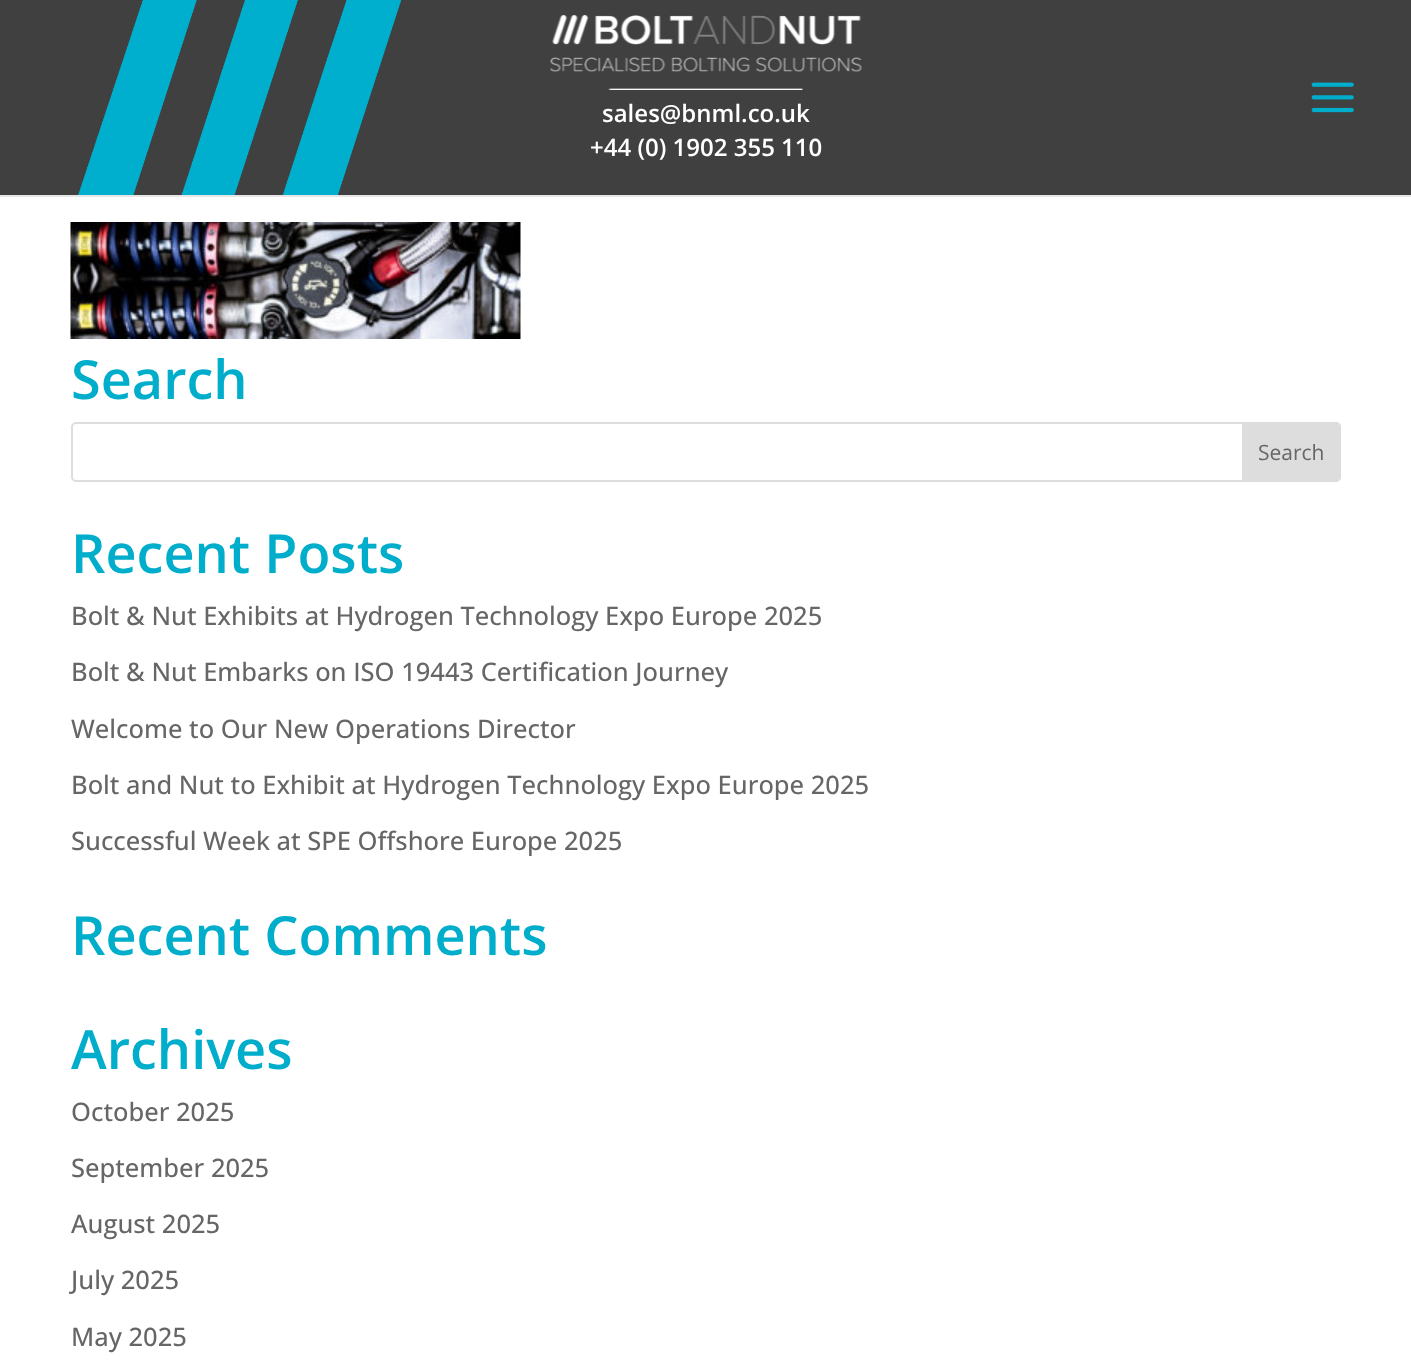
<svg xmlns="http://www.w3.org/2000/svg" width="1411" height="1364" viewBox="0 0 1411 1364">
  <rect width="100%" height="100%" fill="#fff"/>
  <path d="M0 195V197H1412V2V195Z" fill="#e6e6e6"/>
  <image x="0" y="0" width="1411" height="195" href="img/1.png"/>
  <image x="550" y="15" width="312" height="75" href="img/2.png"/>
  <image x="1311" y="82" width="43" height="31" href="img/3.png"/>
  <image x="70" y="222" width="451" height="117" href="img/4.png"/>
  <rect x="72" y="423" width="1268" height="58" rx="4" fill="none" stroke="#ddd" stroke-width="2"/>
  <path d="M1243 423H1336C1338 423 1340 425 1340 427V477C1340 479 1338 481 1336 481H1243Z" fill="#ddd" stroke="#ddd" stroke-width="2"/>
  <g font-family="Open Sans" font-size="24" font-weight="600" fill="#fff">
    <text x="602" y="122">sales@bnml.co.uk</text>
    <text x="590" y="156">+44 (0) 1902 355 110</text>
  </g>
  <text x="71" y="399" font-family="Open Sans" font-size="54" font-weight="600" fill="#00aecc">Search</text>
  <text x="1258" y="460" font-family="Open Sans" font-size="21" fill="#666">Search</text>
  <text x="71" y="573" font-family="Open Sans" font-size="54" font-weight="600" fill="#00aecc">Recent Posts</text>
  <g font-family="Open Sans" font-size="25.5" font-weight="500" fill="#666">
    <text x="71" y="625">Bolt &amp; Nut Exhibits at Hydrogen Technology Expo Europe 2025</text>
    <text x="71" y="681">Bolt &amp; Nut Embarks on ISO 19443 Certification Journey</text>
    <text x="71" y="738">Welcome to Our New Operations Director</text>
    <text x="71" y="794">Bolt and Nut to Exhibit at Hydrogen Technology Expo Europe 2025</text>
    <text x="71" y="850">Successful Week at SPE Offshore Europe 2025</text>
  </g>
  <g font-family="Open Sans" font-size="54" font-weight="600" fill="#00aecc">
    <text x="71" y="955">Recent Comments</text>
    <text x="71" y="1069">Archives</text>
  </g>
  <g font-family="Open Sans" font-size="25.5" font-weight="500" fill="#666">
    <text x="71" y="1121">October 2025</text>
    <text x="71" y="1177">September 2025</text>
    <text x="71" y="1233">August 2025</text>
    <text x="71" y="1289">July 2025</text>
    <text x="71" y="1346">May 2025</text>
  </g>
</svg>
